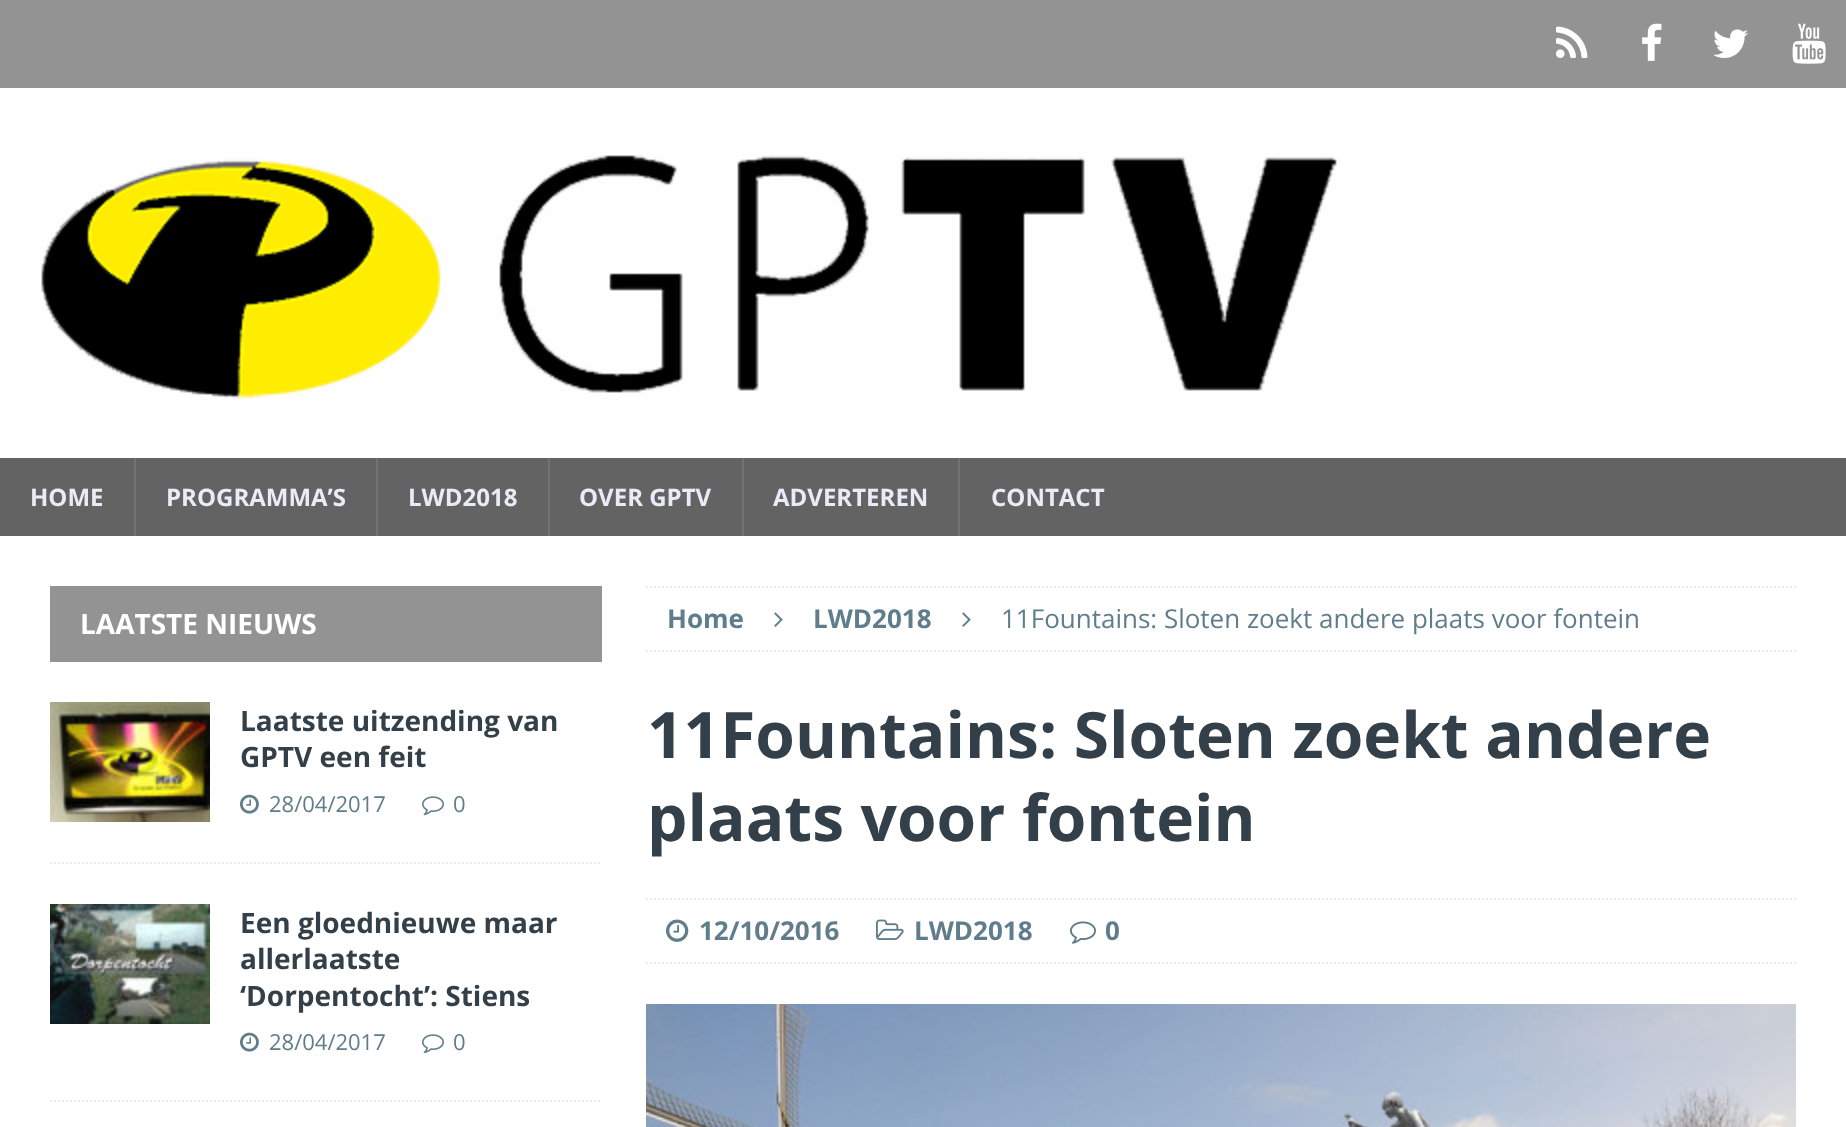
<svg xmlns="http://www.w3.org/2000/svg" width="1846" height="1127" viewBox="0 0 1846 1127">
  <rect width="100%" height="100%" fill="#939393"/>
  <image x="1556" y="26" width="32" height="32" href="img/1.png"/>
  <image x="1642" y="23" width="20" height="38" href="img/2.png"/>
  <image x="1713" y="29" width="35" height="29" href="img/3.png"/>
  <image x="1792" y="23" width="34" height="41" href="img/4.png"/>
  <path d="M0 88h1846v370H0z" fill="#fff"/>
  <image x="41" y="155" width="1296" height="244" href="img/5.png"/>
  <path d="M0 458h1846v78H0z" fill="#636363"/>
  <path d="M134 458h2v78H134z" fill="#737373"/>
  <path d="M376 458h2v78H376z" fill="#737373"/>
  <path d="M548 458h2v78H548z" fill="#737373"/>
  <path d="M742 458h2v78H742z" fill="#737373"/>
  <path d="M958 458h2v78H958z" fill="#737373"/>
  <path d="M0 536h1846v591H0z" fill="#fff"/>
  <path d="M50 586h552v76H50z" fill="#939393"/>
  <path d="M50 863H602" fill="none" stroke="#ebebeb" stroke-width="2" stroke-dasharray="2 2"/>
  <image x="50" y="702" width="160" height="120" href="img/6.png"/>
  <image x="240" y="794" width="19" height="20" href="img/7.png"/>
  <image x="422" y="796" width="22" height="20" href="img/8.png"/>
  <path d="M50 1101H602" fill="none" stroke="#ebebeb" stroke-width="2" stroke-dasharray="2 2"/>
  <image x="50" y="904" width="160" height="120" href="img/9.png"/>
  <image x="240" y="1032" width="19" height="20" href="img/7.png"/>
  <image x="422" y="1034" width="22" height="20" href="img/8.png"/>
  <path d="M646 587H1796" fill="none" stroke="#ebebeb" stroke-width="2" stroke-dasharray="2 2"/>
  <path d="M646 651H1796" fill="none" stroke="#ebebeb" stroke-width="2" stroke-dasharray="2 2"/>
  <image x="774" y="612" width="9" height="15" href="img/10.png"/>
  <image x="962" y="612" width="9" height="15" href="img/10.png"/>
  <path d="M646 899H1796" fill="none" stroke="#ebebeb" stroke-width="2" stroke-dasharray="2 2"/>
  <path d="M646 963H1796" fill="none" stroke="#ebebeb" stroke-width="2" stroke-dasharray="2 2"/>
  <image x="666" y="919" width="23" height="23" href="img/11.png"/>
  <image x="876" y="919" width="28" height="21" href="img/12.png"/>
  <image x="1070" y="921" width="26" height="23" href="img/13.png"/>
  <image x="646" y="1004" width="1150" height="123" href="img/14.png"/>
  <g font-family="Open Sans" font-size="24" font-weight="bold" fill="#e9ecf6">
    <text x="30" y="506">HOME</text>
    <text x="166" y="506">PROGRAMMA’S</text>
    <text x="408" y="506">LWD2018</text>
    <text x="579" y="506">OVER GPTV</text>
    <text x="773" y="506">ADVERTEREN</text>
    <text x="991" y="506">CONTACT</text>
  </g>
  <text x="80" y="634" font-family="Open Sans" font-size="28" font-weight="bold" fill="#fff">LAATSTE NIEUWS</text>
  <g font-family="Open Sans" font-size="28" font-weight="bold" fill="#333f49">
    <text x="240" y="731">Laatste uitzending van</text>
    <text x="240" y="767">GPTV een feit</text>
  </g>
  <g font-family="Open Sans" font-size="22" fill="#607d8b">
    <text x="269" y="812">28/04/2017</text>
    <text x="453" y="812">0</text>
  </g>
  <g font-family="Open Sans" font-size="28" font-weight="bold" fill="#333f49">
    <text x="240" y="933">Een gloednieuwe maar</text>
    <text x="240" y="969">allerlaatste</text>
    <text x="240" y="1006">‘Dorpentocht’: Stiens</text>
  </g>
  <g font-family="Open Sans" font-size="22" fill="#607d8b">
    <text x="269" y="1050">28/04/2017</text>
    <text x="453" y="1050">0</text>
  </g>
  <g font-family="Open Sans" font-size="26" font-weight="bold" fill="#607d8b">
    <text x="667" y="628">Home</text>
    <text x="813" y="628">LWD2018</text>
  </g>
  <text x="1001" y="628" font-family="Open Sans" font-size="26" fill="#607d8b">11Fountains: Sloten zoekt andere plaats voor fontein</text>
  <g font-family="Open Sans" font-size="64" font-weight="bold" fill="#333f49">
    <text x="647" y="758">11Fountains: Sloten zoekt andere</text>
    <text x="647" y="841">plaats voor fontein</text>
  </g>
  <g font-family="Open Sans" font-size="26" font-weight="bold" fill="#607d8b">
    <text x="699" y="940">12/10/2016</text>
    <text x="914" y="940">LWD2018</text>
    <text x="1105" y="940">0</text>
  </g>
</svg>
